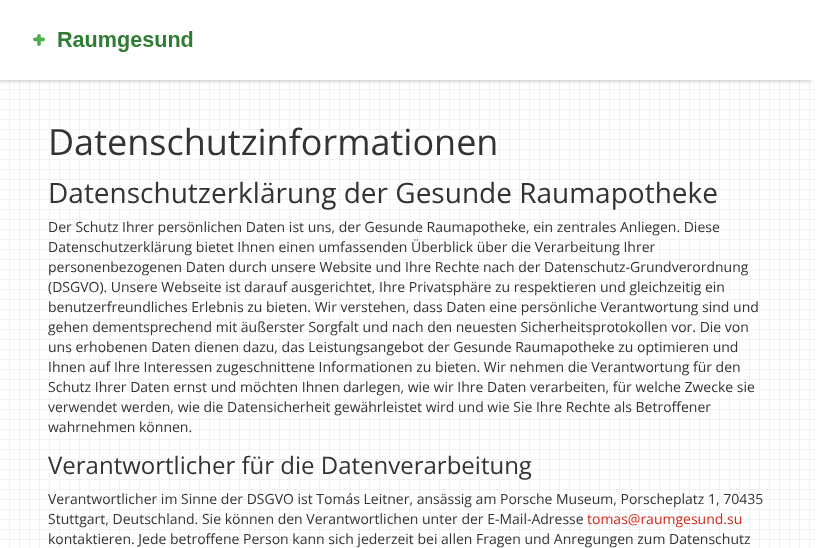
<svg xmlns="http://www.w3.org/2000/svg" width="816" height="548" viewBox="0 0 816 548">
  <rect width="100%" height="100%" fill="#fff"/>
  <image x="0" y="80" width="816" height="468" href="img/1.png"/>
  <path d="M-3 1h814v78H-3z" fill="#918d8d" filter="blur(3px)"/>
  <path d="M0 0h816v80H0z" fill="#fff"/>
  <image x="33" y="31" width="160" height="21" href="img/2.png"/>
  <text x="48" y="155" font-family="Open Sans" font-size="36" fill="#333">Datenschutzinformationen</text>
  <text x="48" y="203" font-family="Open Sans" font-size="28" fill="#333">Datenschutzerklärung der Gesunde Raumapotheke</text>
  <g font-family="Open Sans" font-size="14" fill="#333">
    <text x="48" y="232">Der Schutz Ihrer persönlichen Daten ist uns, der Gesunde Raumapotheke, ein zentrales Anliegen. Diese</text>
    <text x="48" y="252">Datenschutzerklärung bietet Ihnen einen umfassenden Überblick über die Verarbeitung Ihrer</text>
    <text x="48" y="272">personenbezogenen Daten durch unsere Website und Ihre Rechte nach der Datenschutz-Grundverordnung</text>
    <text x="48" y="292">(DSGVO). Unsere Webseite ist darauf ausgerichtet, Ihre Privatsphäre zu respektieren und gleichzeitig ein</text>
    <text x="48" y="312">benutzerfreundliches Erlebnis zu bieten. Wir verstehen, dass Daten eine persönliche Verantwortung sind und</text>
    <text x="48" y="332">gehen dementsprechend mit äußerster Sorgfalt und nach den neuesten Sicherheitsprotokollen vor. Die von</text>
    <text x="48" y="352">uns erhobenen Daten dienen dazu, das Leistungsangebot der Gesunde Raumapotheke zu optimieren und</text>
    <text x="48" y="372">Ihnen auf Ihre Interessen zugeschnittene Informationen zu bieten. Wir nehmen die Verantwortung für den</text>
    <text x="48" y="392">Schutz Ihrer Daten ernst und möchten Ihnen darlegen, wie wir Ihre Daten verarbeiten, für welche Zwecke sie</text>
    <text x="48" y="412">verwendet werden, wie die Datensicherheit gewährleistet wird und wie Sie Ihre Rechte als Betroffener</text>
    <text x="48" y="432">wahrnehmen können.</text>
  </g>
  <text x="48" y="474" font-family="Open Sans" font-size="24" fill="#333">Verantwortlicher für die Datenverarbeitung</text>
  <g font-family="Open Sans" font-size="14" fill="#333">
    <text x="48" y="504">Verantwortlicher im Sinne der DSGVO ist Tomás Leitner, ansässig am Porsche Museum, Porscheplatz 1, 70435</text>
    <text x="48" y="524">Stuttgart, Deutschland. Sie können den Verantwortlichen unter der E-Mail-Adresse</text>
  </g>
  <text x="587" y="524" font-family="Open Sans" font-size="14" fill="#d42819">tomas@raumgesund.su</text>
  <text x="48" y="544" font-family="Open Sans" font-size="14" fill="#333">kontaktieren. Jede betroffene Person kann sich jederzeit bei allen Fragen und Anregungen zum Datenschutz</text>
</svg>
